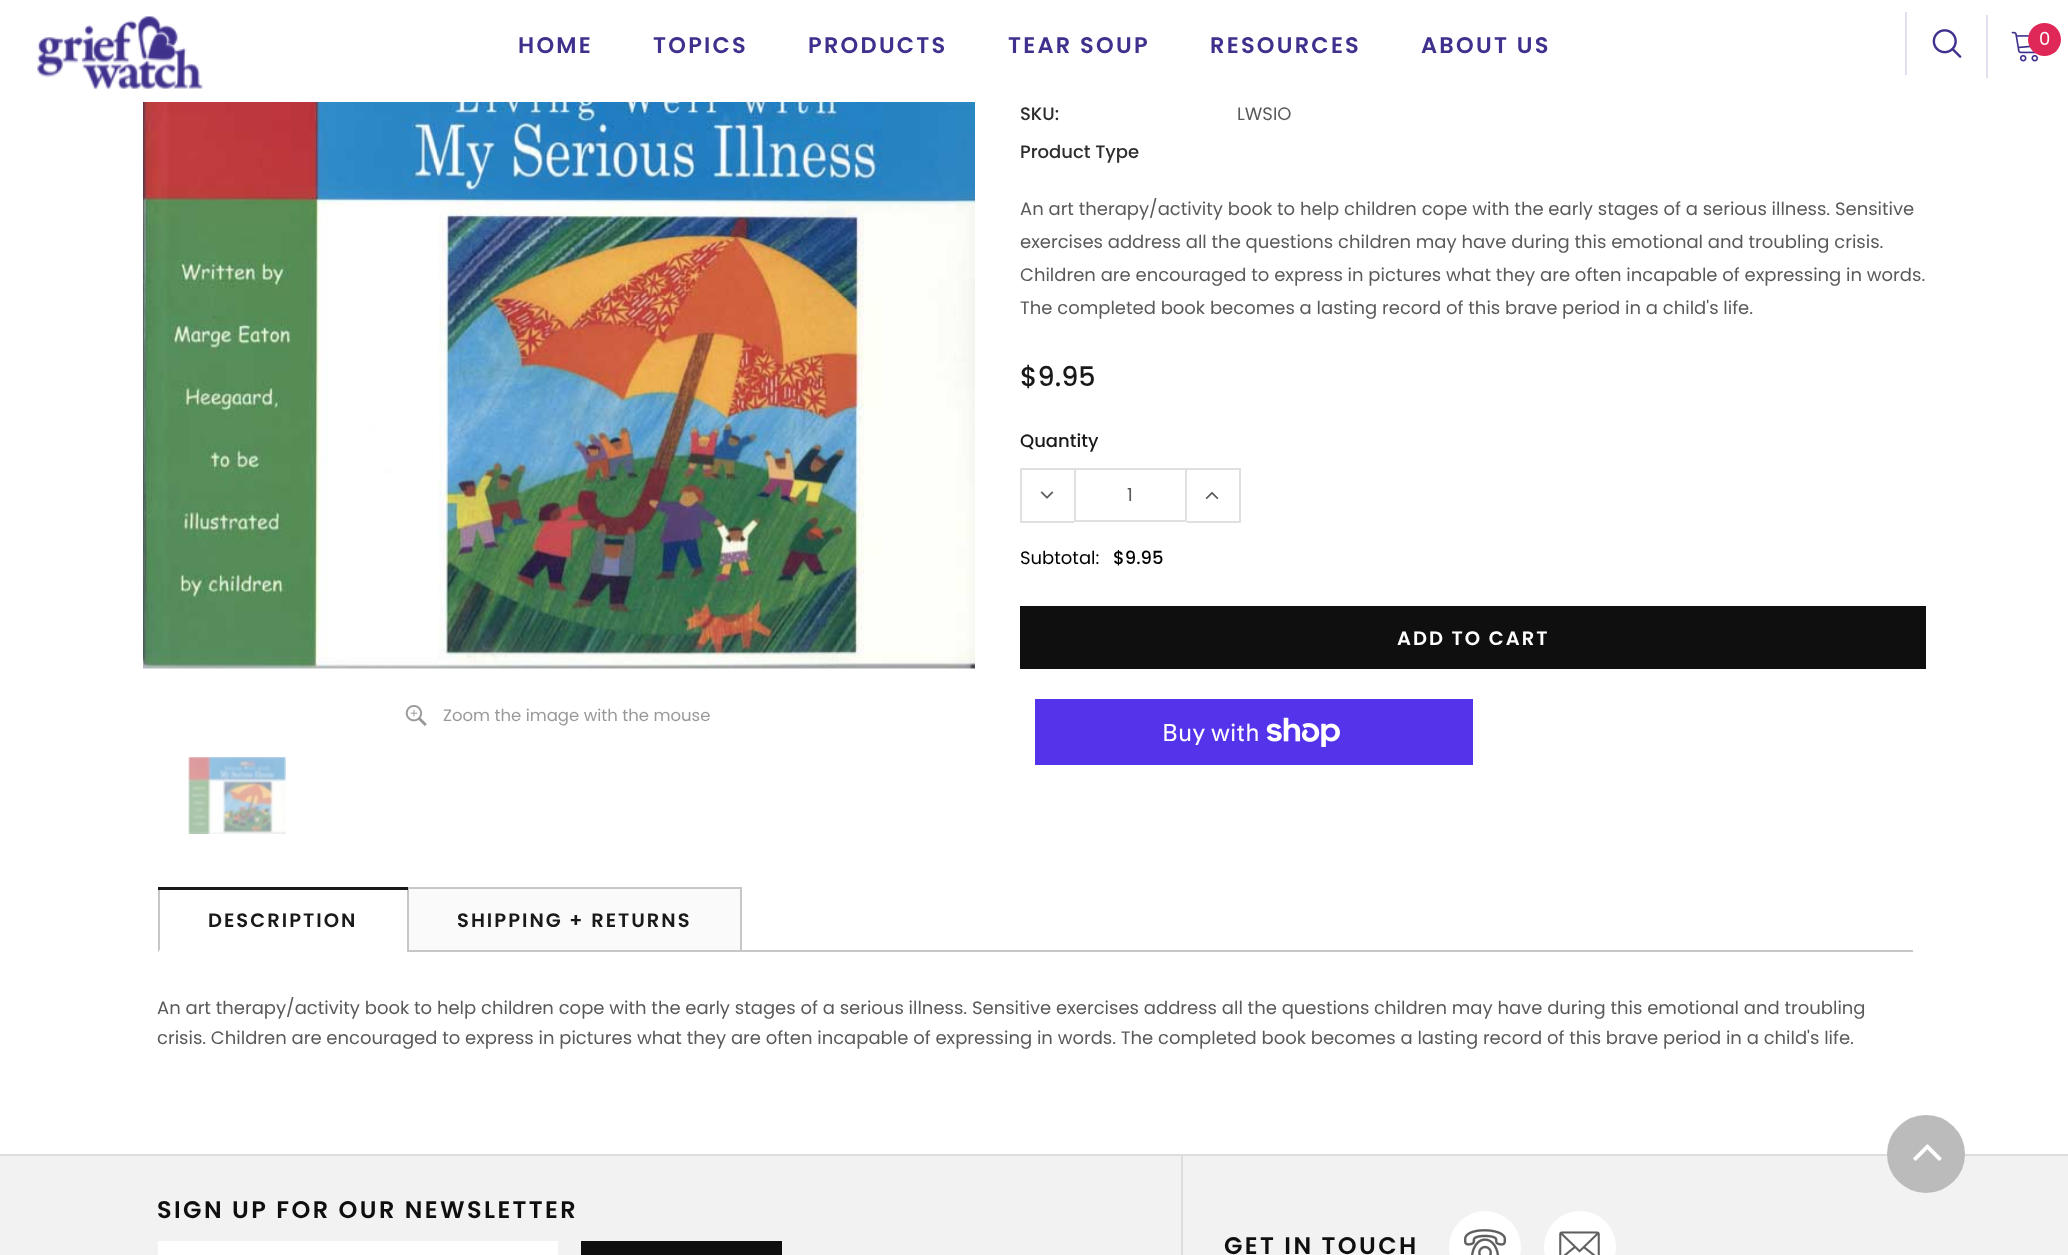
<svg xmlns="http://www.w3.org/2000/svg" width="2068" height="1255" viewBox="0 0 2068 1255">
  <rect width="100%" height="100%" fill="#fff"/>
  <path d="M1905 12h2v63H1905z" fill="#e2e0ee"/>
  <image x="1932" y="29" width="30" height="29" href="img/1.png"/>
  <image x="37" y="16" width="166" height="73" href="img/2.png"/>
  <path d="M1986 15h2v63H1986z" fill="#e2e0ee"/>
  <image x="2011" y="31" width="27" height="31" href="img/3.png"/>
  <circle cx="2044.5" cy="39.5" r="16.5" fill="#e02858"/>
  <image x="143" y="102" width="832" height="567" href="img/4.png"/>
  <image x="405" y="705" width="22" height="21" href="img/5.png"/>
  <image x="188" y="757" width="98" height="77" href="img/6.png"/>
  <path d="M1020 468h54v2H1020z" fill="#e0e0e0"/>
  <path d="M1020 521h54v2H1020z" fill="#e0e0e0"/>
  <path d="M1020 468h2v54H1020z" fill="#e0e0e0"/>
  <image x="1040" y="491" width="14" height="8" href="img/7.png"/>
  <path d="M1075 469h111v52H1075z" fill="none" stroke="#e0e0e0" stroke-width="2"/>
  <path d="M1187 468h54v2H1187z" fill="#e0e0e0"/>
  <path d="M1239 468h2v54H1239z" fill="#e0e0e0"/>
  <path d="M1187 521h54v2H1187z" fill="#e0e0e0"/>
  <image x="1205" y="491" width="14" height="9" href="img/8.png"/>
  <path d="M1020 606h906v63H1020z" fill="#0f0f0f"/>
  <path d="M1035 699h438v66H1035z" fill="#5433eb"/>
  <image x="1266" y="717" width="74" height="30" href="img/9.png"/>
  <path d="M158 950h1755v2H158z" fill="#c7c7c7"/>
  <path d="M158 887h2v63H158z" fill="#c7c7c7"/>
  <path d="M407 887h334v2H407z" fill="#c7c7c7"/>
  <path d="M407 887h2v63H407z" fill="#c7c7c7"/>
  <path d="M158 887h250v3H158z" fill="#191919"/>
  <path d="M159 950h248v2H159z" fill="#fff"/>
  <path d="M409 889h331v61H409z" fill="#fafafa"/>
  <path d="M740 887h2v63H740z" fill="#c7c7c7"/>
  <path d="M0 1156h2068v99H0z" fill="#f2f2f2"/>
  <path d="M0 1154h2068v2H0z" fill="#ddd"/>
  <circle cx="1926" cy="1154" r="38" fill="#bbb" stroke="#bbb" stroke-width="2"/>
  <image x="1913" y="1144" width="29" height="17" href="img/10.png"/>
  <path d="M158 1241h400v14H158z" fill="#fff"/>
  <path d="M581 1241h201v14H581z" fill="#0f0f0f"/>
  <path d="M1181 1155h2v100H1181z" fill="#ddd"/>
  <circle cx="1485" cy="1247" r="36" fill="#fff"/>
  <image x="1464" y="1229" width="42" height="26" href="img/11.png"/>
  <circle cx="1580" cy="1247" r="36" fill="#fff"/>
  <image x="1559" y="1231" width="41" height="24" href="img/12.png"/>
  <g font-family="Poppins" font-size="22.5" font-weight="600" letter-spacing="2.25" fill="#3f308d">
    <text x="518" y="53">HOME</text>
    <text x="653" y="53">TOPICS</text>
    <text x="808" y="53">PRODUCTS</text>
    <text x="1008" y="53">TEAR SOUP</text>
    <text x="1210" y="53">RESOURCES</text>
    <text x="1421" y="53">ABOUT US</text>
  </g>
  <text x="2039" y="45" font-family="Poppins" font-size="18" fill="#fff">0</text>
  <text x="443" y="721" font-family="Poppins" font-size="16.5" fill="#999">Zoom the image with the mouse</text>
  <text x="1020" y="120" font-family="Poppins" font-size="18" font-weight="500" fill="#2d2d2d">SKU:</text>
  <text x="1237" y="120" font-family="Poppins" font-size="18" fill="#5a5a5a">LWSIO</text>
  <text x="1020" y="158" font-family="Poppins" font-size="18" font-weight="500" fill="#2d2d2d">Product Type</text>
  <g font-family="Poppins" font-size="18" fill="#5a5a5a">
    <text x="1020" y="215">An art therapy/activity book to help children cope with the early stages of a serious illness. Sensitive</text>
    <text x="1020" y="248">exercises address all the questions children may have during this emotional and troubling crisis.</text>
    <text x="1020" y="281">Children are encouraged to express in pictures what they are often incapable of expressing in words.</text>
    <text x="1020" y="314">The completed book becomes a lasting record of this brave period in a child's life.</text>
  </g>
  <text x="1020" y="386" font-family="Poppins" font-size="27" font-weight="500" fill="#191919">$9.95</text>
  <text x="1020" y="447" font-family="Poppins" font-size="18" font-weight="500" fill="#191919">Quantity</text>
  <text x="1127" y="501" font-family="Poppins" font-size="18" fill="#5a5a5a">1</text>
  <text x="1020" y="564" font-family="Poppins" font-size="18" fill="#000">Subtotal:</text>
  <text x="1113" y="564" font-family="Poppins" font-size="18" font-weight="500" fill="#000">$9.95</text>
  <text x="1397" y="645" font-family="Poppins" font-size="19.5" font-weight="600" letter-spacing="2" fill="#fff">ADD TO CART</text>
  <text x="1162" y="741" font-family="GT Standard" font-size="24" fill="#fff">Buy with</text>
  <g font-family="Poppins" font-size="19.5" font-weight="600" letter-spacing="2" fill="#191919">
    <text x="208" y="927">DESCRIPTION</text>
    <text x="457" y="927">SHIPPING + RETURNS</text>
  </g>
  <g font-family="Poppins" font-size="18" fill="#5a5a5a">
    <text x="157" y="1014">An art therapy/activity book to help children cope with the early stages of a serious illness. Sensitive exercises address all the questions children may have during this emotional and troubling</text>
    <text x="157" y="1044">crisis. Children are encouraged to express in pictures what they are often incapable of expressing in words. The completed book becomes a lasting record of this brave period in a child's life.</text>
  </g>
  <g font-family="Poppins" font-size="24" font-weight="600" letter-spacing="2.4" fill="#0f0f0f">
    <text x="157" y="1218">SIGN UP FOR OUR NEWSLETTER</text>
    <text x="1224" y="1254">GET IN TOUCH</text>
  </g>
</svg>
